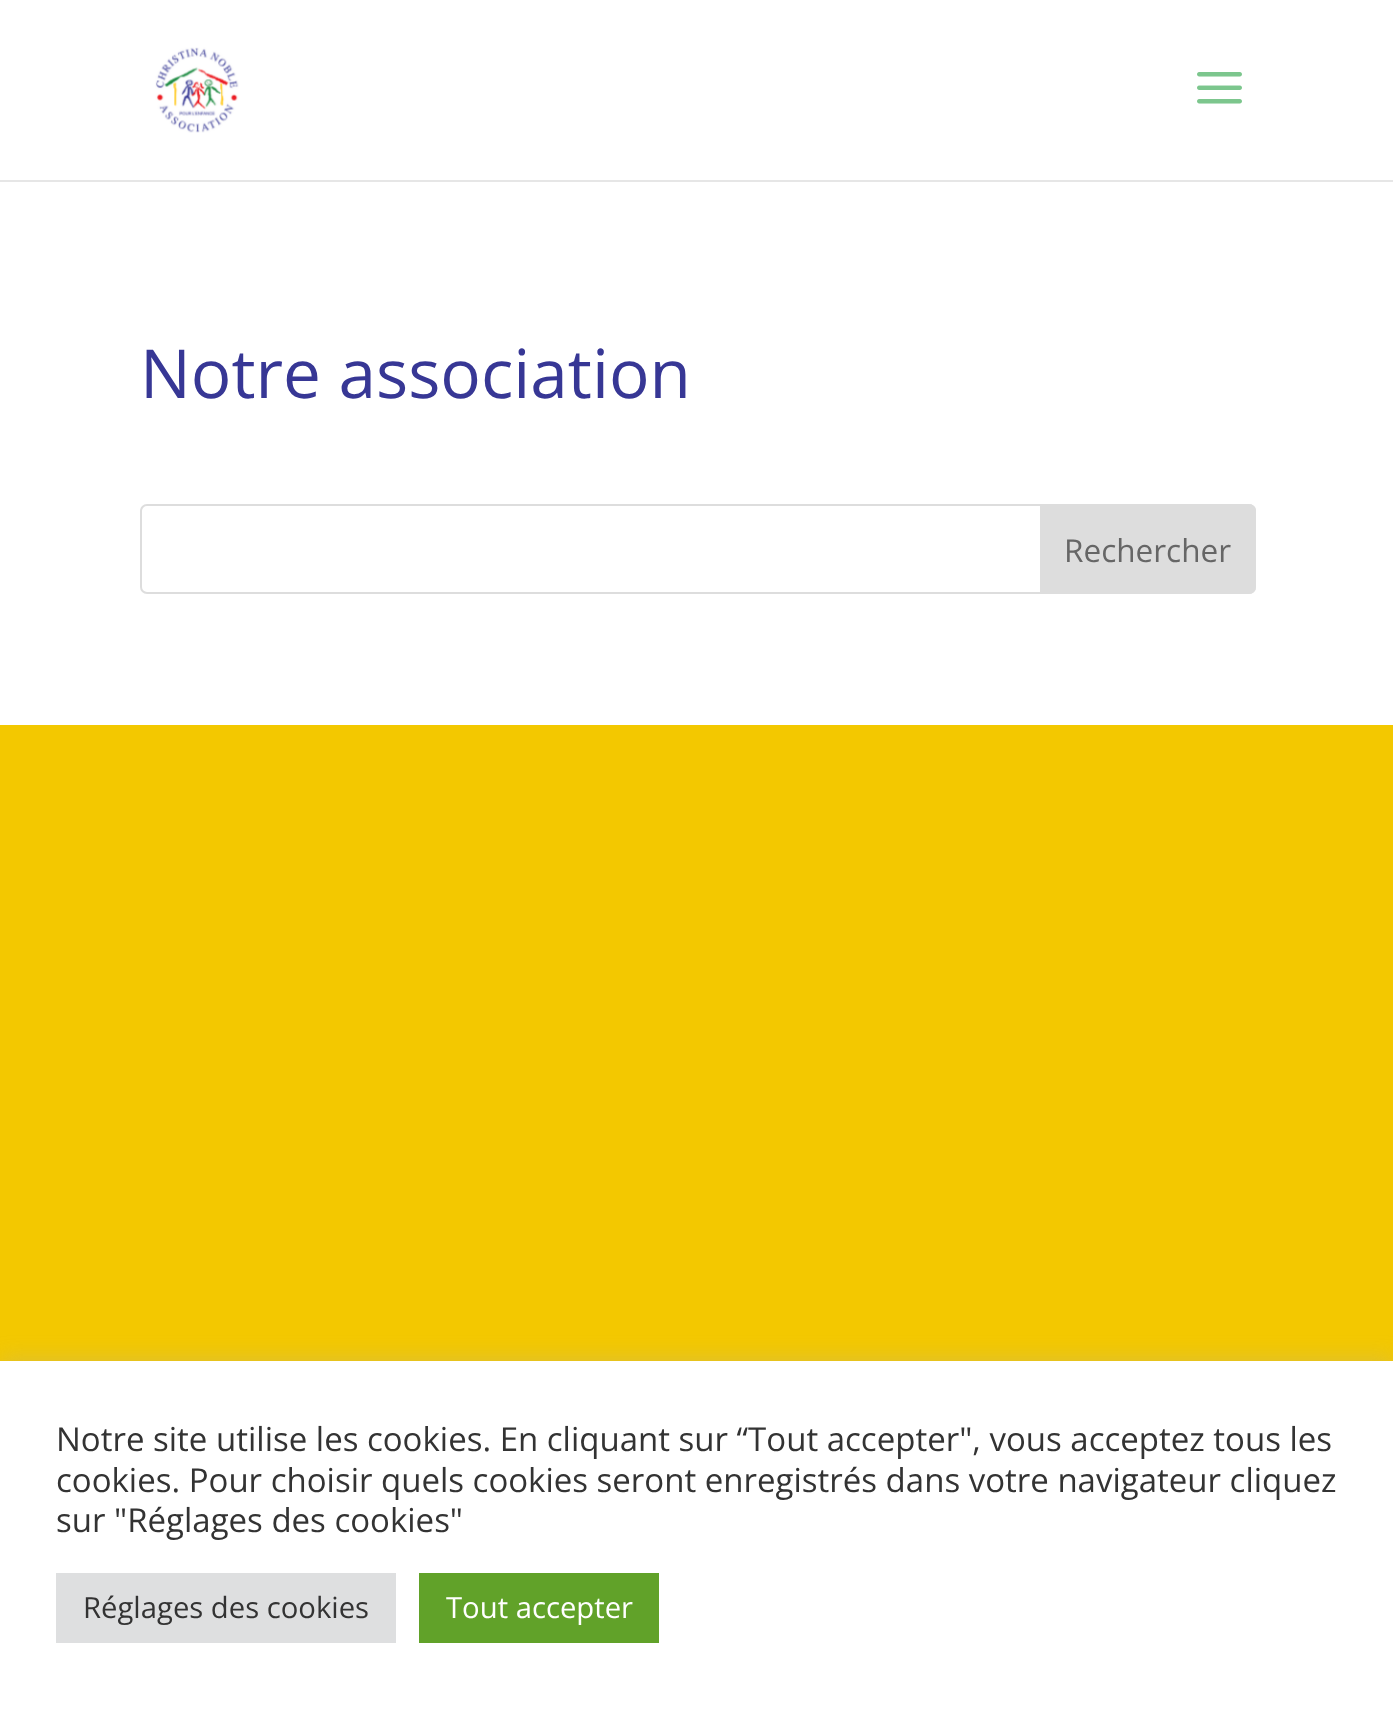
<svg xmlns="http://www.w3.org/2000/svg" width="1393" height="1710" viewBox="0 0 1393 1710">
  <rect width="100%" height="100%" fill="#fff"/>
  <path d="M0 180h1393v2H0z" fill="#e6e6e6"/>
  <image x="155" y="47" width="84" height="86" href="img/1.png"/>
  <image x="1197" y="72" width="45" height="32" href="img/2.png"/>
  <rect x="141" y="505" width="1114" height="88" rx="6" fill="none" stroke="#ddd" stroke-width="2"/>
  <path d="M1041 505H1249C1252.5 505 1255 507.5 1255 511V587C1255 590.5 1252.5 593 1249 593H1041Z" fill="#ddd" stroke="#ddd" stroke-width="2"/>
  <path d="M0 725h1393v636H0z" fill="#f3c800"/>
  <path d="M0 1359h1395v349H0z" fill="#acabab4d" filter="blur(11px)"/>
  <path d="M0 1361h1393v349H0z" fill="#fff"/>
  <path d="M56 1573h340v70H56z" fill="#dedfe0"/>
  <path d="M419 1573h240v70H419z" fill="#61a229"/>
  <text x="140" y="398" font-family="Open Sans" font-size="67.5" fill="#373795">Notre association</text>
  <text x="1064" y="562" font-family="Open Sans" font-size="31.5" fill="#666">Rechercher</text>
  <g font-family="Open Sans" font-size="33" fill="#333">
    <text x="56" y="1451">Notre site utilise les cookies. En cliquant sur “Tout accepter", vous acceptez tous les</text>
    <text x="56" y="1492">cookies. Pour choisir quels cookies seront enregistrés dans votre navigateur cliquez</text>
    <text x="56" y="1532">sur "Réglages des cookies"</text>
  </g>
  <text x="83" y="1618" font-family="Open Sans" font-size="29.25" fill="#333">Réglages des cookies</text>
  <text x="446" y="1618" font-family="Open Sans" font-size="29.25" fill="#fff">Tout accepter</text>
</svg>
